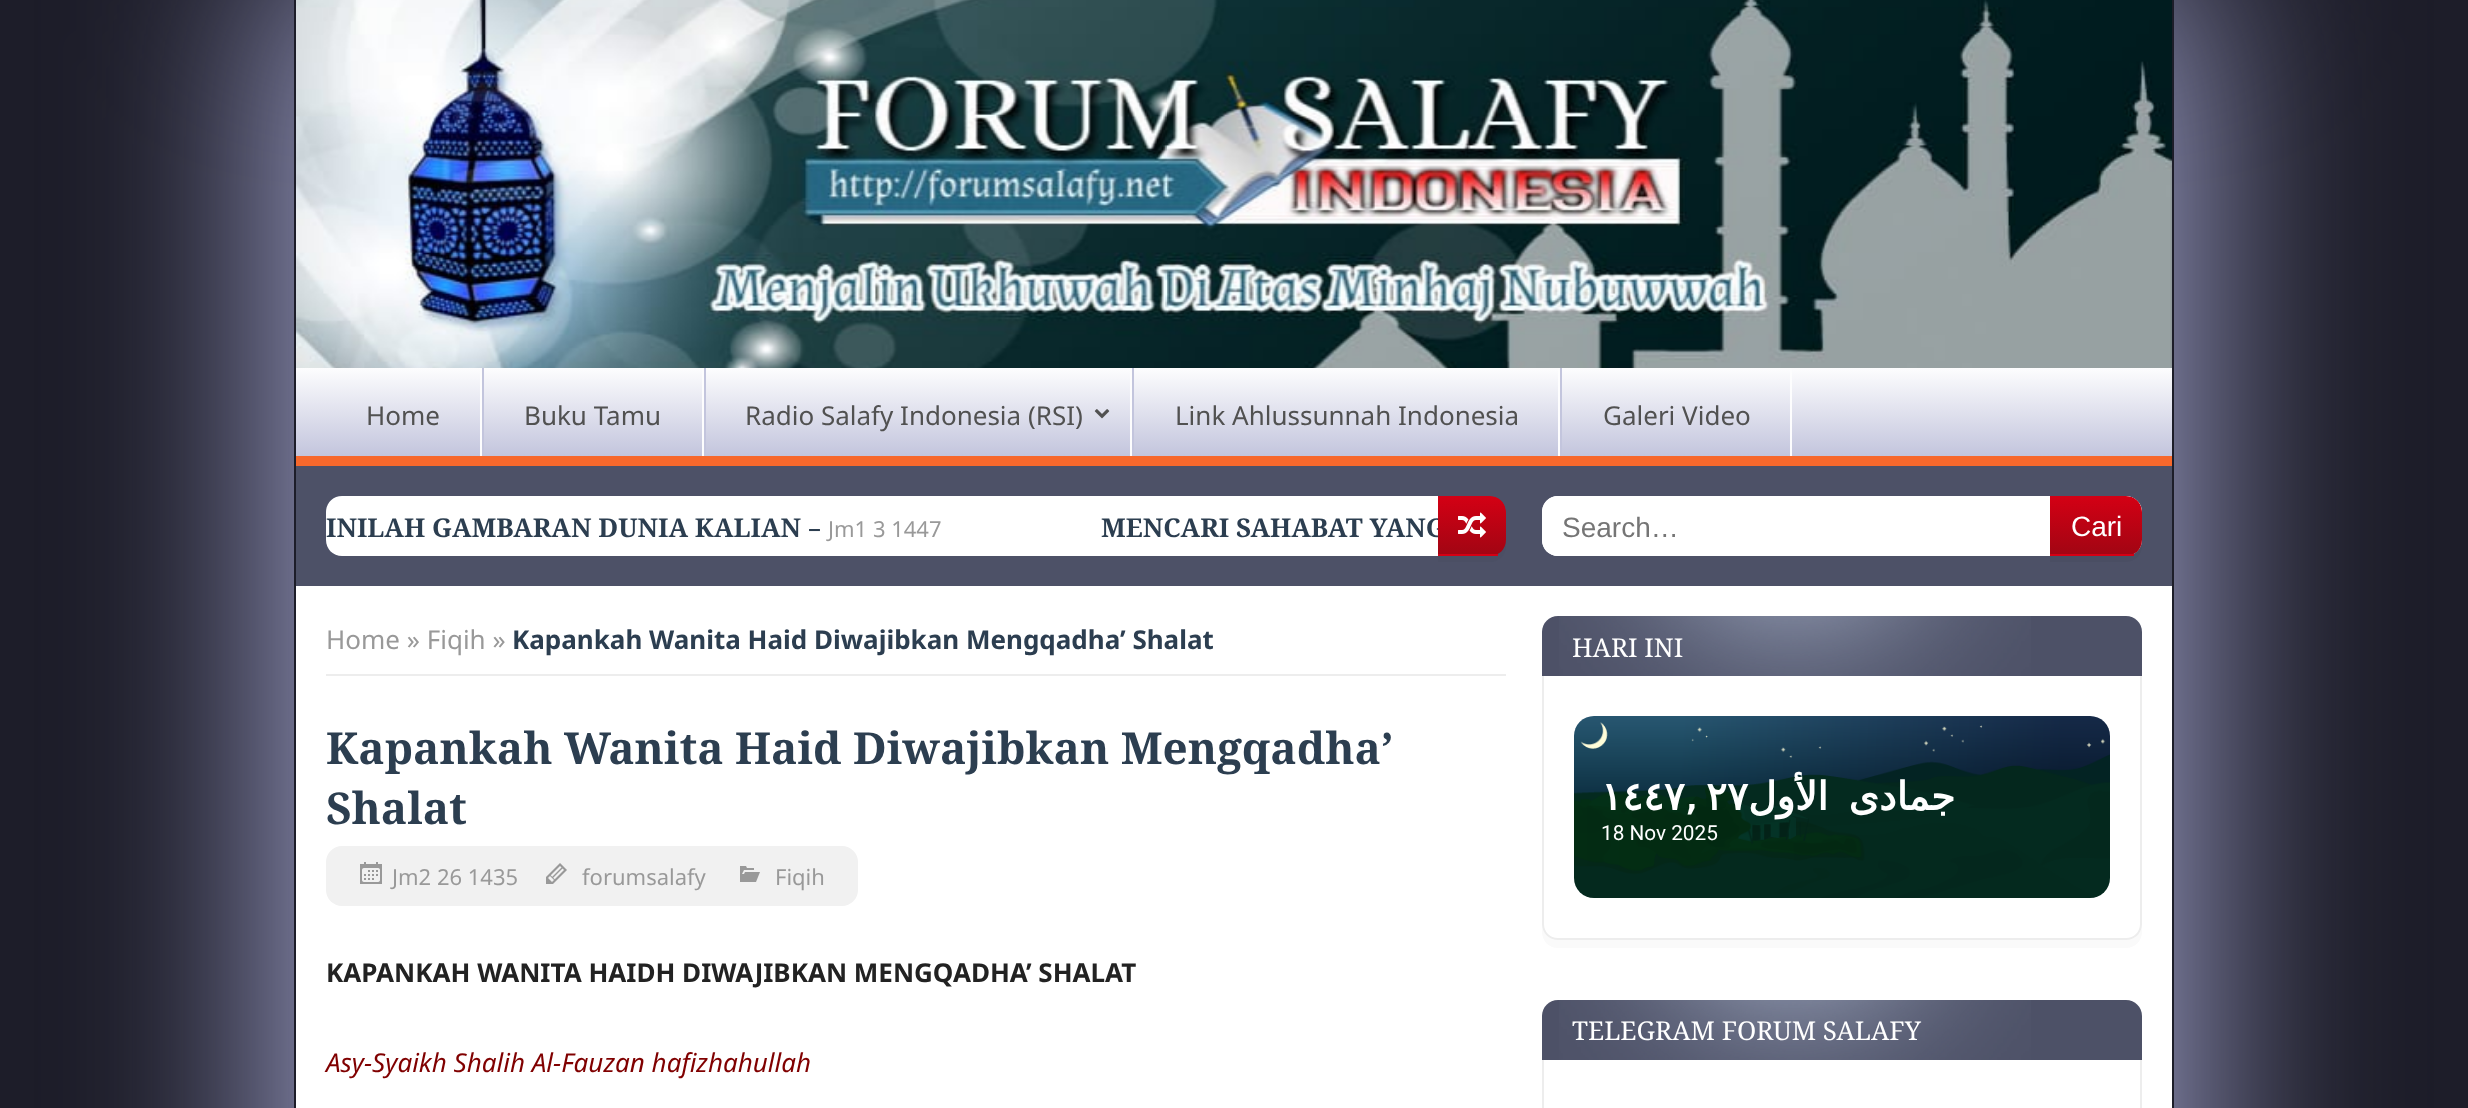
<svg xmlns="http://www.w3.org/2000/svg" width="2468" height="1108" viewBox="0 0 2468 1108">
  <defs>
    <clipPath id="clip1"><path d="M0 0H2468V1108H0ZM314-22H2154C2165-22 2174-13 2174-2V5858C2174 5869 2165 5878 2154 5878H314C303 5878 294 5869 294 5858V-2C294-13 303-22 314-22Z" clip-rule="evenodd"/></clipPath>
    <linearGradient id="g1" gradientUnits="userSpaceOnUse" x1="1234" y1="368" x2="1234" y2="456"><stop offset="0" stop-color="#fdfdfe"/><stop offset="1" stop-color="#c3c5dd"/></linearGradient>
    <clipPath id="clip2"><path d="M1438 496H1490C1499 496 1506 503 1506 512V540C1506 549 1499 556 1490 556H1438Z"/></clipPath>
    <linearGradient id="g2" gradientUnits="userSpaceOnUse" x1="1472" y1="496" x2="1472" y2="554"><stop offset="0" stop-color="#d40014"/><stop offset="1" stop-color="#a20513"/></linearGradient>
    <clipPath id="clip3"><path d="M2050 496H2126C2135 496 2142 503 2142 512V540C2142 549 2135 556 2126 556H2050Z"/></clipPath>
    <linearGradient id="g3" gradientUnits="userSpaceOnUse" x1="2096" y1="496" x2="2096" y2="554"><stop offset="0" stop-color="#d40014"/><stop offset="1" stop-color="#a20513"/></linearGradient>
    <clipPath id="clip4"><path d="M342 496H1438V556H342C333 556 326 549 326 540V512C326 503 333 496 342 496Z"/></clipPath>
  </defs>
  <rect width="100%" height="100%" fill="#1d1d29"/>
  <g clip-path="url(#clip1)">
    <rect x="274" y="-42" width="1920" height="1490" rx="40" fill="#a2a4cd" filter="blur(100px)"/>
  </g>
  <image x="296" y="0" width="1876" height="368" href="img/1.png"/>
  <path d="M296 368h1876v88H296z" fill="url(#g1)"/>
  <path d="M296 456h1876v10H296z" fill="#f7682c"/>
  <path d="M480 368h2v88H480z" fill="#fdfdfe"/>
  <path d="M702 368h2v88H702z" fill="#fdfdfe"/>
  <path d="M482 368h2v88H482z" fill="#c3c5dd"/>
  <path d="M1130 368h2v88H1130z" fill="#fdfdfe"/>
  <path d="M704 368h2v88H704z" fill="#c3c5dd"/>
  <image x="1094" y="409" width="16" height="10" href="img/2.png"/>
  <path d="M1558 368h2v88H1558z" fill="#fdfdfe"/>
  <path d="M1132 368h2v88H1132z" fill="#c3c5dd"/>
  <path d="M1790 368h2v88H1790z" fill="#fdfdfe"/>
  <path d="M1560 368h2v88H1560z" fill="#c3c5dd"/>
  <path d="M296 466h1876v120H296z" fill="#4d5167"/>
  <path d="M342 496H1438V556H342C333 556 326 549 326 540V512C326 503 333 496 342 496Z" fill="#fff"/>
  <path d="M1438 556V562H1490C1499 562 1506 555 1506 546V540C1506 549 1499 556 1490 556Z" fill="#4b4f64"/>
  <g clip-path="url(#clip2)">
    <path d="M1438 496H1490C1499 496 1506 503 1506 512V554H1438Z" fill="url(#g2)"/>
  </g>
  <path d="M1438 554h60v2H1438z" fill="#d50014"/>
  <image x="1458" y="512" width="28" height="26" href="img/3.png"/>
  <rect x="1542" y="496" width="600" height="60" rx="16" fill="#fff"/>
  <path d="M1558 496H1944V556H1558C1549 556 1542 549 1542 540V512C1542 503 1549 496 1558 496Z" fill="#fff"/>
  <path d="M2050 556V562H2126C2135 562 2142 555 2142 546V540C2142 549 2135 556 2126 556Z" fill="#00000008"/>
  <g clip-path="url(#clip3)">
    <path d="M2050 496H2126C2135 496 2142 503 2142 512V554H2050Z" fill="url(#g3)"/>
  </g>
  <path d="M2050 554h84v2H2050z" fill="#d50014"/>
  <path d="M296 586h1876v522H296z" fill="#fff"/>
  <path d="M326 674h1180v2H326z" fill="#ededed"/>
  <rect x="326" y="846" width="532" height="60" rx="16" fill="#f1f1f1"/>
  <image x="360" y="862" width="22" height="22" href="img/4.png"/>
  <image x="546" y="863" width="21" height="21" href="img/5.png"/>
  <image x="740" y="866" width="20" height="16" href="img/6.png"/>
  <path d="M1558 616H2126C2135 616 2142 623 2142 632V676H1542V632C1542 623 1549 616 1558 616Z" fill="#4d5167"/>
  <image x="1559" y="616" width="472" height="60" href="img/7.png"/>
  <path d="M1542 924V932C1542 941 1549 948 1558 948H2126C2135 948 2142 941 2142 932V924C2142 933 2135 940 2126 940H1558C1549 940 1542 933 1542 924Z" fill="#fafafa"/>
  <path d="M1542 676H2142V924C2142 933 2135 940 2126 940H1558C1549 940 1542 933 1542 924ZM1544 676H2140V924C2140 932 2134 938 2126 938H1558C1550 938 1544 932 1544 924Z" fill="#ededed" fill-rule="evenodd"/>
  <rect x="1574" y="716" width="536" height="182" rx="20" fill="#f3f3f3"/>
  <image x="1574" y="716" width="536" height="182" href="img/8.png"/>
  <path d="M1558 1000H2126C2135 1000 2142 1007 2142 1016V1060H1542V1016C1542 1007 1549 1000 1558 1000Z" fill="#4d5167"/>
  <image x="1559" y="1000" width="472" height="60" href="img/7.png"/>
  <path d="M1542 1060H2142V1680C2142 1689 2135 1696 2126 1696H1558C1549 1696 1542 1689 1542 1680ZM1544 1060H2140V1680C2140 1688 2134 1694 2126 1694H1558C1550 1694 1544 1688 1544 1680Z" fill="#ededed" fill-rule="evenodd"/>
  <g font-family="Noto Sans" font-size="26" fill="#515151">
    <text x="366" y="425">Home</text>
    <text x="524" y="425">Buku Tamu</text>
    <text x="745" y="425">Radio Salafy Indonesia (RSI)</text>
    <text x="1175" y="425">Link Ahlussunnah Indonesia</text>
    <text x="1603" y="425">Galeri Video</text>
  </g>
  <text x="326" y="537" font-family="Noto Serif" font-size="26" font-weight="bold" fill="#2c3e50">INILAH GAMBARAN DUNIA KALIAN</text>
  <text x="808" y="537" font-family="Noto Sans" font-size="26" fill="#2c3e50">–</text>
  <text x="828" y="537" font-family="'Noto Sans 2'" font-size="22" fill="#999">Jm1 3 1447</text>
  <g clip-path="url(#clip4)">
    <text x="1101" y="537" font-family="Noto Serif" font-size="26" font-weight="bold" fill="#2c3e50">MENCARI SAHABAT YANG</text>
  </g>
  <text x="1562" y="537" font-family="Liberation Sans" font-size="28" fill="#757575">Search…</text>
  <text x="2071" y="536" font-family="Liberation Sans" font-size="28" fill="#fff">Cari</text>
  <text x="326" y="649" font-family="Noto Sans" font-size="26" fill="#999">Home » Fiqih »</text>
  <text x="512" y="649" font-family="Noto Sans" font-size="26" font-weight="bold" fill="#2c3e50">Kapankah Wanita Haid Diwajibkan Mengqadha’ Shalat</text>
  <g font-family="Noto Serif" font-size="44" font-weight="bold" fill="#2c3e50">
    <text x="326" y="764">Kapankah Wanita Haid Diwajibkan Mengqadha’</text>
    <text x="326" y="824">Shalat</text>
  </g>
  <g font-family="'Noto Sans 2'" font-size="22" fill="#999">
    <text x="392" y="885">Jm2 26 1435</text>
    <text x="582" y="885">forumsalafy</text>
    <text x="775" y="885">Fiqih</text>
  </g>
  <text x="326" y="982" font-family="Noto Sans" font-size="26" font-weight="bold" fill="#222">KAPANKAH WANITA HAIDH DIWAJIBKAN MENGQADHA’ SHALAT</text>
  <text x="326" y="1072" font-family="Noto Sans" font-size="26" font-style="italic" fill="#800000">Asy-Syaikh Shalih Al-Fauzan hafizhahullah</text>
  <text x="1572" y="657" font-family="Noto Serif" font-size="26" fill="#fff">HARI INI</text>
  <g font-family="DejaVu Sans" font-size="39" font-weight="bold" fill="#fff">
    <text x="1601" y="810">١٤٤٧,</text>
    <text x="1706" y="810">٢٧</text>
  </g>
  <text x="1955" y="810" word-spacing="8" font-family="DejaVu Sans" font-size="39" font-weight="bold" direction="rtl" fill="#fff">جمادى الأول</text>
  <text x="1601" y="840" font-family="Roboto" font-size="20.75" fill="#fff">18 Nov 2025</text>
  <text x="1572" y="1040" font-family="Noto Serif" font-size="26" fill="#fff">TELEGRAM FORUM SALAFY</text>
</svg>
